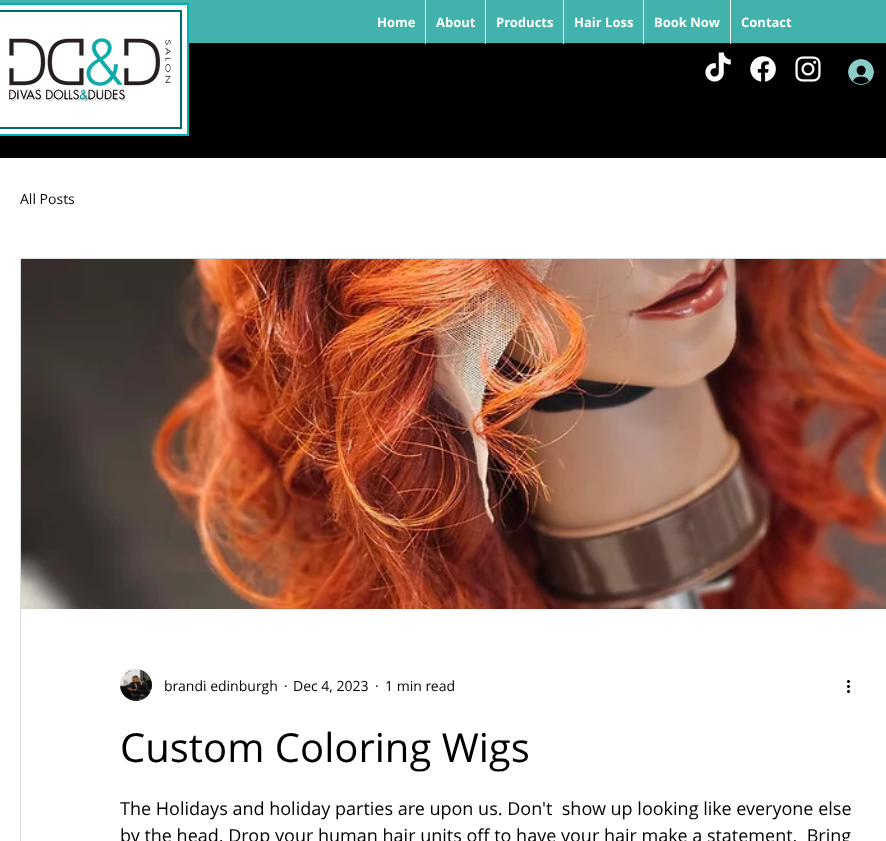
<svg xmlns="http://www.w3.org/2000/svg" width="886" height="841" viewBox="0 0 886 841">
  <rect width="100%" height="100%" fill="#000"/>
  <path d="M0 0h886v43H0z" fill="#42b2ac"/>
  <path d="M-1 4h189v131H-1z" fill="#fff" stroke="#01b1af" stroke-width="2"/>
  <path d="M-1 11h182v117H-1z" fill="none" stroke="#006c6d" stroke-width="2"/>
  <image x="9" y="38" width="162" height="64" href="img/1.png"/>
  <path d="M425 0h1v44H425z" fill="#fff"/>
  <path d="M485 0h1v44H485z" fill="#fff"/>
  <path d="M563 0h1v44H563z" fill="#fff"/>
  <path d="M643 0h1v44H643z" fill="#fff"/>
  <path d="M730 0h1v44H730z" fill="#fff"/>
  <image x="705" y="52" width="26" height="30" href="img/2.png"/>
  <image x="750" y="56" width="26" height="26" href="img/3.png"/>
  <image x="795" y="56" width="26" height="26" href="img/4.png"/>
  <image x="848" y="59" width="26" height="26" href="img/5.png"/>
  <path d="M0 158h886v683H0z" fill="#fff"/>
  <path d="M20.5 258.5h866v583H20.5z" fill="none" stroke="#dadada"/>
  <image x="21" y="259" width="865" height="350" href="img/6.png"/>
  <image x="120" y="669" width="32" height="32" href="img/7.png"/>
  <image x="847" y="680" width="3" height="13" href="img/8.png"/>
  <g font-family="Open Sans" font-size="13" font-weight="bold" fill="#fff">
    <text x="377" y="27">Home</text>
    <text x="436" y="27">About</text>
    <text x="496" y="27">Products</text>
    <text x="574" y="27">Hair Loss</text>
    <text x="654" y="27">Book Now</text>
    <text x="741" y="27">Contact</text>
  </g>
  <g font-family="Open Sans" font-size="14" fill="#000">
    <text x="20" y="204">All Posts</text>
    <text x="164" y="691">brandi edinburgh</text>
    <text x="284" y="691">·</text>
    <text x="293" y="691">Dec 4, 2023</text>
    <text x="375" y="691">·</text>
    <text x="385" y="691">1 min read</text>
  </g>
  <text x="120" y="762" font-family="Open Sans" font-size="40" fill="#000">Custom Coloring Wigs</text>
  <g font-family="Open Sans" font-size="18" fill="#000">
    <text x="120" y="815" xml:space="preserve">The Holidays and holiday parties are upon us. Don't  show up looking like everyone else</text>
    <text x="120" y="842" xml:space="preserve">by the head. Drop your human hair units off to have your hair make a statement.  Bring</text>
  </g>
</svg>
